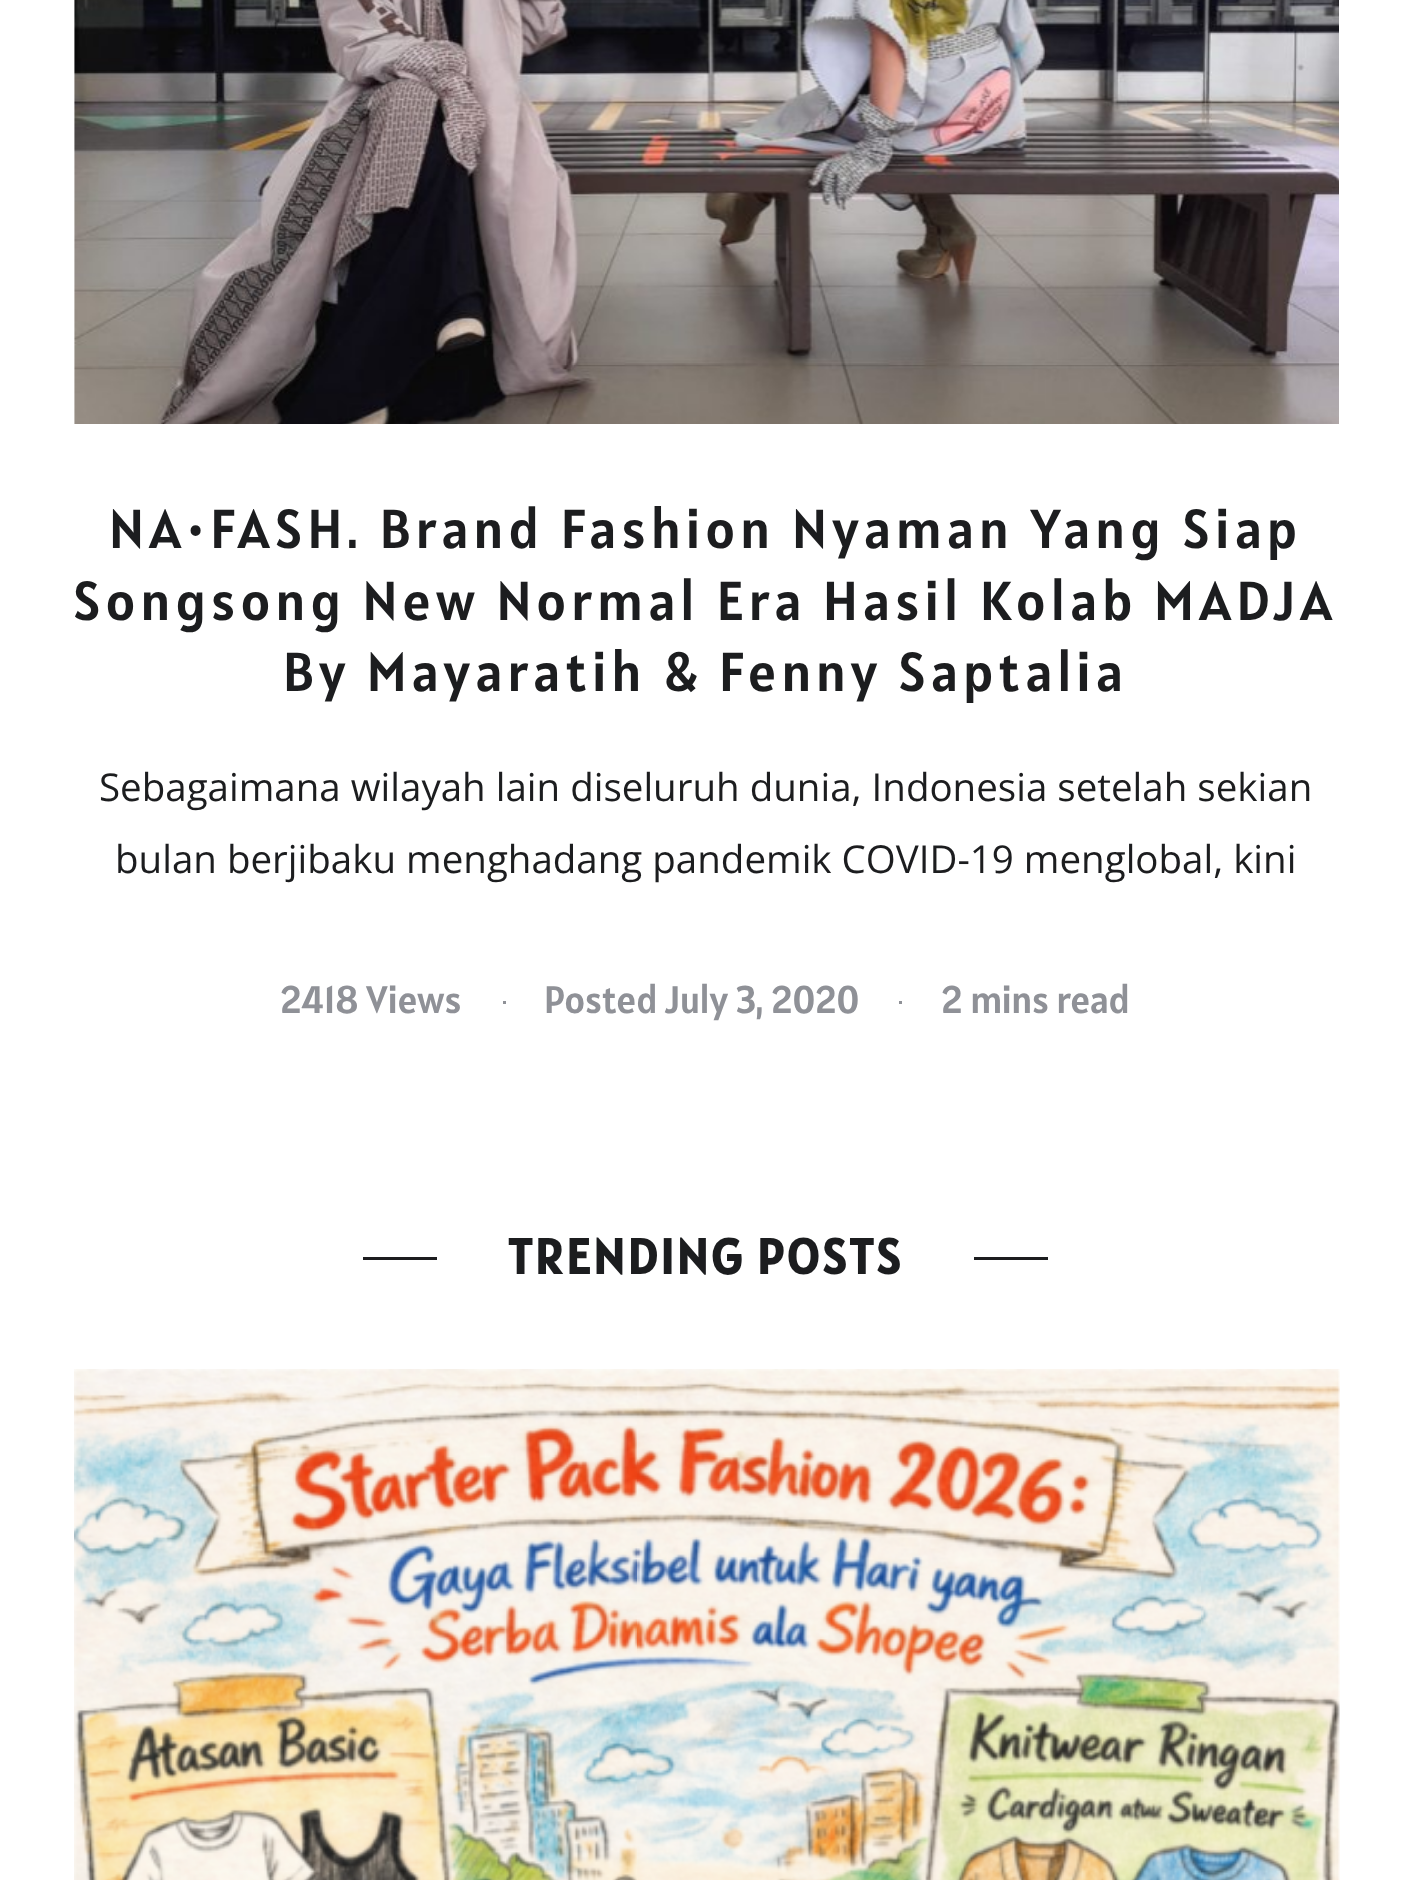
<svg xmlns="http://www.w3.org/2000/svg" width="1410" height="1880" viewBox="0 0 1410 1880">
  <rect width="100%" height="100%" fill="#fff"/>
  <image x="74" y="0" width="1265" height="424" href="img/1.png"/>
  <path d="M503 1001h3v3H503z" fill="#8f9197"/>
  <path d="M899 1001h3v3H899z" fill="#8f9197"/>
  <path d="M363 1257h74v3H363z" fill="#1c1d1f"/>
  <path d="M974 1257h74v3H974z" fill="#1c1d1f"/>
  <image x="74" y="1369" width="1266" height="511" href="img/2.png"/>
  <g font-family="Alatsi" font-size="55" letter-spacing="5.5" fill="#1c1d1f">
    <text x="109" y="548">NA•FASH. Brand Fashion Nyaman Yang Siap</text>
    <text x="73" y="620">Songsong New Normal Era Hasil Kolab MADJA</text>
    <text x="283" y="691">By Mayaratih &amp; Fenny Saptalia</text>
  </g>
  <g font-family="Open Sans" font-size="38.5" fill="#1c1d1f">
    <text x="99" y="801">Sebagaimana wilayah lain diseluruh dunia, Indonesia setelah sekian</text>
    <text x="115" y="873">bulan berjibaku menghadang pandemik COVID-19 menglobal, kini</text>
  </g>
  <g font-family="Alatsi" font-size="38.5" fill="#8f9197">
    <text x="280" y="1013">2418 Views</text>
    <text x="544" y="1013">Posted July 3, 2020</text>
    <text x="941" y="1013">2 mins read</text>
  </g>
  <text x="507" y="1274" font-family="Alatsi" font-size="49.5" font-weight="bold" letter-spacing="2.75" fill="#1c1d1f">TRENDING POSTS</text>
</svg>
